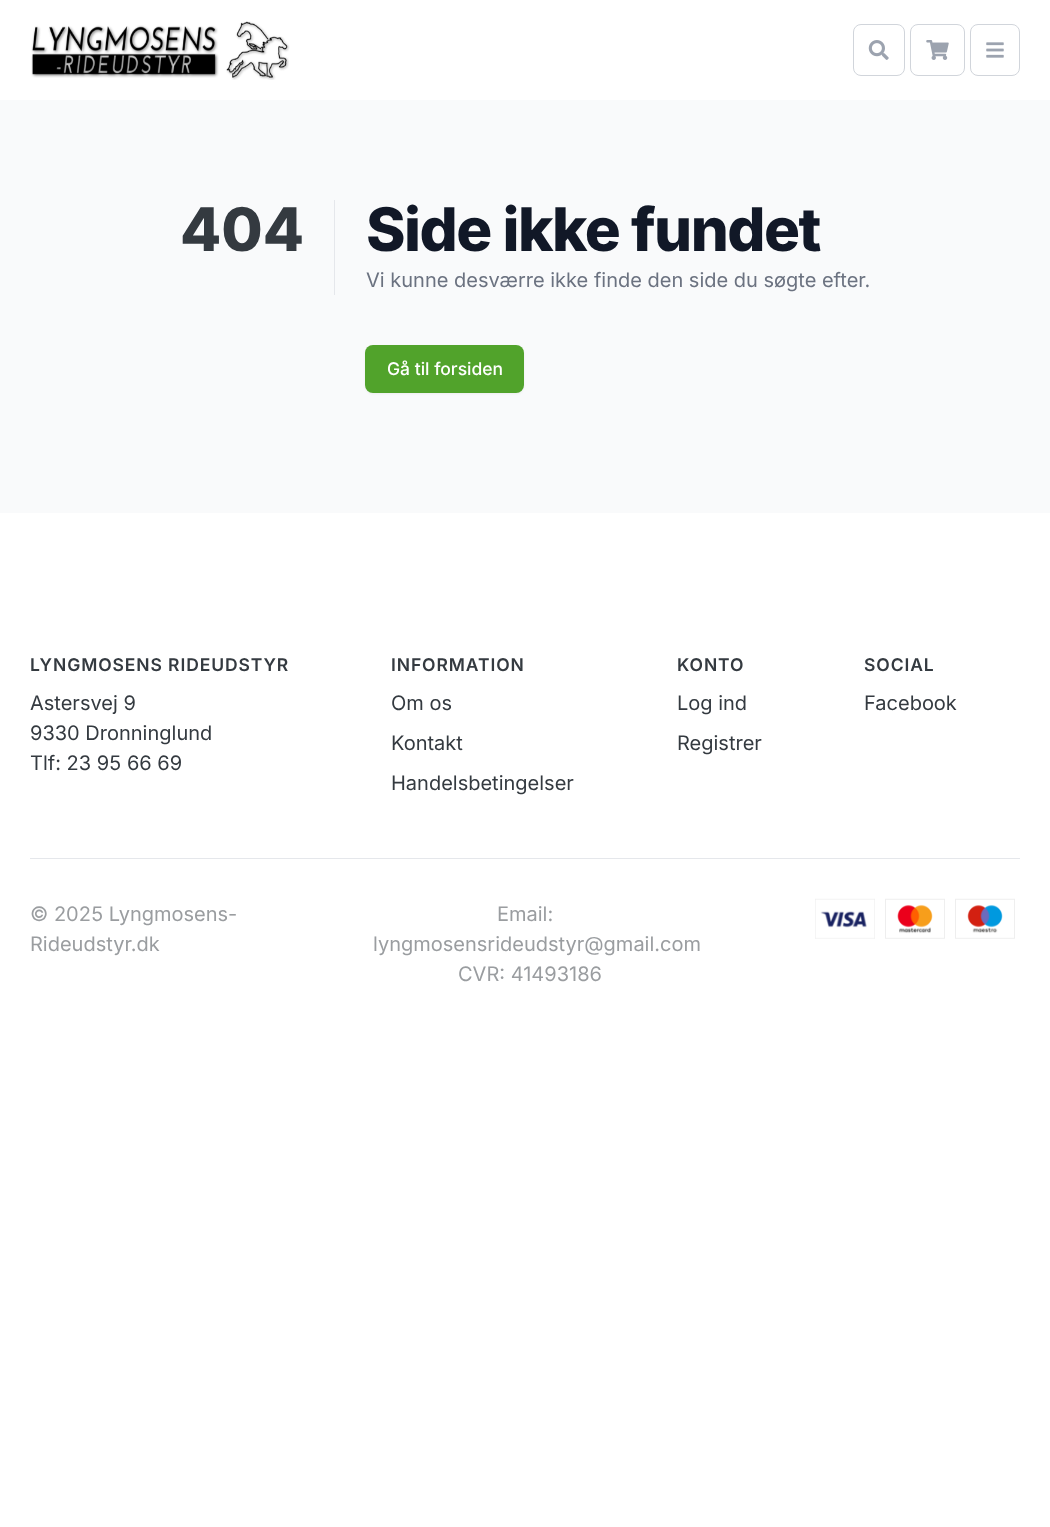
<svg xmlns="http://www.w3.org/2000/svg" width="1050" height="1527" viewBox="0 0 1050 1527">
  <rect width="100%" height="100%" fill="#fff"/>
  <image x="31" y="21" width="259" height="59" href="img/1.png"/>
  <rect x="853.5" y="24.5" width="51" height="51" rx="7.5" fill="none" stroke="#d1d5db"/>
  <image x="868" y="40" width="21" height="20" href="img/2.png"/>
  <rect x="910.5" y="24.5" width="54" height="51" rx="7.5" fill="none" stroke="#d1d5db"/>
  <image x="926" y="40" width="23" height="20" href="img/3.png"/>
  <rect x="970.5" y="24.5" width="49" height="51" rx="7.5" fill="none" stroke="#d1d5db"/>
  <image x="986" y="42" width="18" height="16" href="img/4.png"/>
  <path d="M0 100h1050v413H0z" fill="#f9fafb"/>
  <path d="M334 200h1v95H334z" fill="#e5e7eb"/>
  <rect x="365" y="346" width="159" height="48" rx="8" fill="#0000000d" filter="blur(1px)"/>
  <rect x="365" y="345" width="159" height="48" rx="8" fill="#51a32b"/>
  <path d="M30 858h990v1H30z" fill="#e5e7eb"/>
  <image x="815" y="898" width="60" height="41" href="img/5.png"/>
  <image x="885" y="898" width="60" height="41" href="img/6.png"/>
  <image x="955" y="898" width="60" height="41" href="img/7.png"/>
  <text x="180" y="251" font-family="Inter" font-size="60" font-weight="800" fill="#343a40">404</text>
  <text x="366" y="251" font-family="Inter" font-size="60" font-weight="800" letter-spacing="-1.5" fill="#111827">Side ikke fundet</text>
  <text x="366" y="287" font-family="Inter" font-size="20" fill="#6b7280">Vi kunne desværre ikke finde den side du søgte efter.</text>
  <text x="387" y="375" font-family="Inter" font-size="17.5" font-weight="500" fill="#fff">Gå til forsiden</text>
  <text x="30" y="671" font-family="Inter" font-size="17.5" font-weight="600" letter-spacing="0.9" fill="#343a40">LYNGMOSENS RIDEUDSTYR</text>
  <g font-family="Inter" font-size="20" fill="#343a40">
    <text x="30" y="710">Astersvej 9</text>
    <text x="30" y="740">9330 Dronninglund</text>
    <text x="30" y="770">Tlf: 23 95 66 69</text>
  </g>
  <text x="391" y="671" font-family="Inter" font-size="17.5" font-weight="600" letter-spacing="0.9" fill="#343a40">INFORMATION</text>
  <g font-family="Inter" font-size="20" fill="#343a40">
    <text x="391" y="710">Om os</text>
    <text x="391" y="750">Kontakt</text>
    <text x="391" y="790">Handelsbetingelser</text>
  </g>
  <text x="677" y="671" font-family="Inter" font-size="17.5" font-weight="600" letter-spacing="0.9" fill="#343a40">KONTO</text>
  <g font-family="Inter" font-size="20" fill="#343a40">
    <text x="677" y="710">Log ind</text>
    <text x="677" y="750">Registrer</text>
  </g>
  <text x="864" y="671" font-family="Inter" font-size="17.5" font-weight="600" letter-spacing="0.9" fill="#343a40">SOCIAL</text>
  <text x="864" y="710" font-family="Inter" font-size="20" fill="#343a40">Facebook</text>
  <g font-family="Inter" font-size="20" fill="#9a9da0">
    <text x="30" y="921">© 2025 Lyngmosens-</text>
    <text x="30" y="951">Rideudstyr.dk</text>
    <text x="497" y="921">Email:</text>
    <text x="373" y="951">lyngmosensrideudstyr@gmail.com</text>
    <text x="458" y="981">CVR: 41493186</text>
  </g>
</svg>
